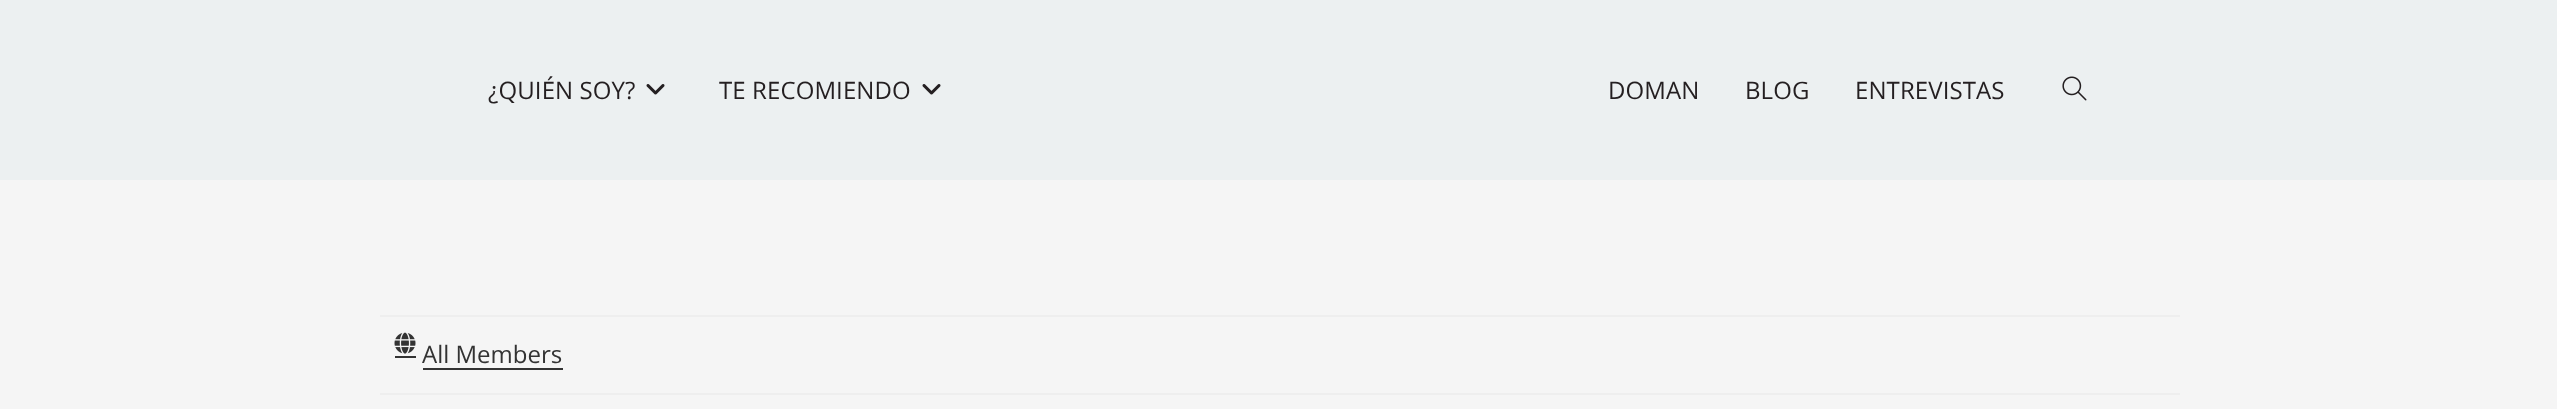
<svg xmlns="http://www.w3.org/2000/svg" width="2557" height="409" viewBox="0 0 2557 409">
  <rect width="100%" height="100%" fill="#f5f5f5"/>
  <path d="M0 0h2557v180H0z" fill="#ecf0f1"/>
  <image x="646" y="84" width="19" height="11" href="img/1.png"/>
  <image x="922" y="84" width="19" height="11" href="img/1.png"/>
  <image x="2062" y="76" width="25" height="25" href="img/2.png"/>
  <path d="M380 315h1800v2H380z" fill="#eee"/>
  <path d="M380 393h1800v2H380z" fill="#eee"/>
  <path d="M395 356h21v2H395z" fill="#333"/>
  <image x="394" y="332" width="22" height="22" href="img/3.png"/>
  <path d="M423 368h140v2H423z" fill="#333"/>
  <g font-family="Open Sans" font-size="24" letter-spacing="0.1" fill="#241f21">
    <text x="488" y="99">¿QUIÉN SOY?</text>
    <text x="719" y="99">TE RECOMIENDO</text>
    <text x="1608" y="99">DOMAN</text>
    <text x="1745" y="99">BLOG</text>
    <text x="1855" y="99">ENTREVISTAS</text>
  </g>
  <text x="422" y="363" font-family="Open Sans" font-size="24" fill="#333">All Members</text>
</svg>
